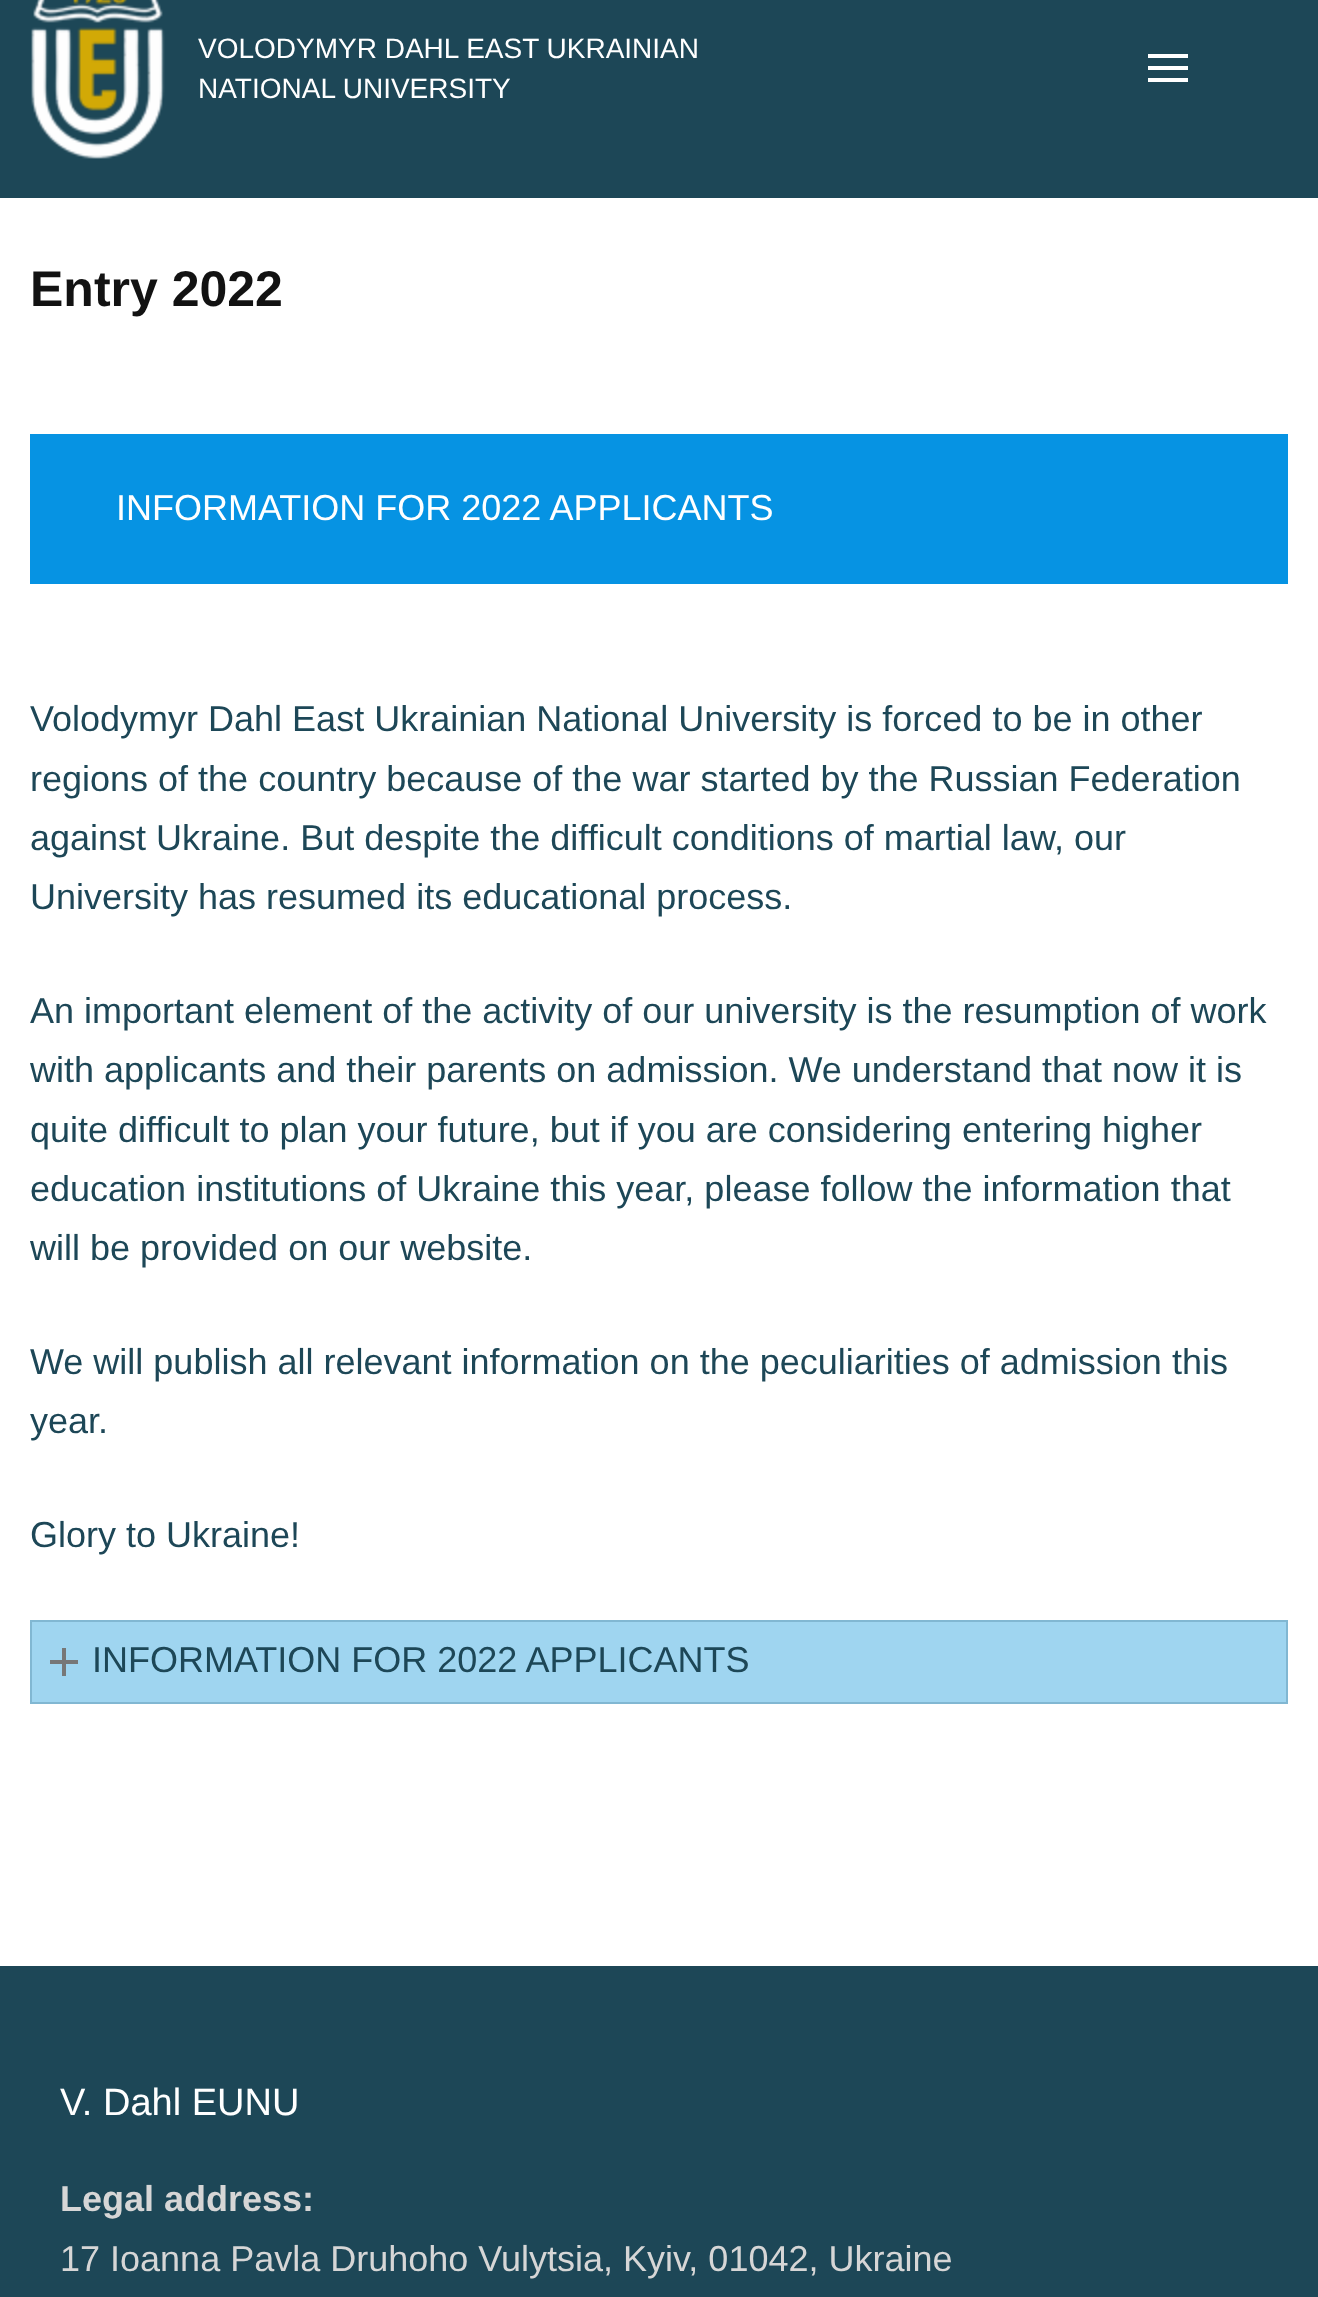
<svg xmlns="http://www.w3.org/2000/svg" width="1318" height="2297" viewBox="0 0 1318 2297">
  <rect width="100%" height="100%" fill="#fff"/>
  <path d="M0 0h1318v198H0z" fill="#1d4757"/>
  <image x="31" y="0" width="134" height="159" href="img/1.png"/>
  <path d="M1148 54h40v4H1148z" fill="#fff"/>
  <path d="M1148 66h40v4H1148z" fill="#fff"/>
  <path d="M1148 78h40v4H1148z" fill="#fff"/>
  <path d="M30 434h1258v150H30z" fill="#0693e3"/>
  <path d="M31 1621h1256v82H31z" fill="none" stroke="#81b7d2" stroke-width="2"/>
  <path d="M32 1622h1254v80H32z" fill="#9fd5f0"/>
  <path d="M62 1648h4v28H62z" fill="#777"/>
  <path d="M50 1660h28v4H50z" fill="#777"/>
  <path d="M0 1966h1318v331H0z" fill="#1d4757"/>
  <g font-family="Liberation Sans" font-size="28" fill="#fff">
    <text x="198" y="58">VOLODYMYR DAHL EAST UKRAINIAN</text>
    <text x="198" y="98">NATIONAL UNIVERSITY</text>
  </g>
  <text x="30" y="306" font-family="Liberation Sans" font-size="50" font-weight="bold" fill="#121212">Entry 2022</text>
  <text x="116" y="520" font-family="Liberation Sans" font-size="36" fill="#fff">INFORMATION FOR 2022 APPLICANTS</text>
  <g font-family="Liberation Sans" font-size="36" fill="#1d4757">
    <text x="30" y="731">Volodymyr Dahl East Ukrainian National University is forced to be in other</text>
    <text x="30" y="791">regions of the country because of the war started by the Russian Federation</text>
    <text x="30" y="850">against Ukraine. But despite the difficult conditions of martial law, our</text>
    <text x="30" y="909">University has resumed its educational process.</text>
    <text x="30" y="1023">An important element of the activity of our university is the resumption of work</text>
    <text x="30" y="1082">with applicants and their parents on admission. We understand that now it is</text>
    <text x="30" y="1142">quite difficult to plan your future, but if you are considering entering higher</text>
    <text x="30" y="1201">education institutions of Ukraine this year, please follow the information that</text>
    <text x="30" y="1260">will be provided on our website.</text>
    <text x="30" y="1374">We will publish all relevant information on the peculiarities of admission this</text>
    <text x="30" y="1433">year.</text>
    <text x="30" y="1547">Glory to Ukraine!</text>
    <text x="92" y="1672">INFORMATION FOR 2022 APPLICANTS</text>
  </g>
  <text x="60" y="2115" font-family="Liberation Sans" font-size="38" fill="#fff">V. Dahl EUNU</text>
  <text x="60" y="2211" font-family="Liberation Sans" font-size="36" font-weight="bold" fill="#d6d6d6">Legal address:</text>
  <text x="60" y="2271" font-family="Liberation Sans" font-size="36" fill="#d6d6d6">17 Ioanna Pavla Druhoho Vulytsia, Kyiv, 01042, Ukraine</text>
</svg>
